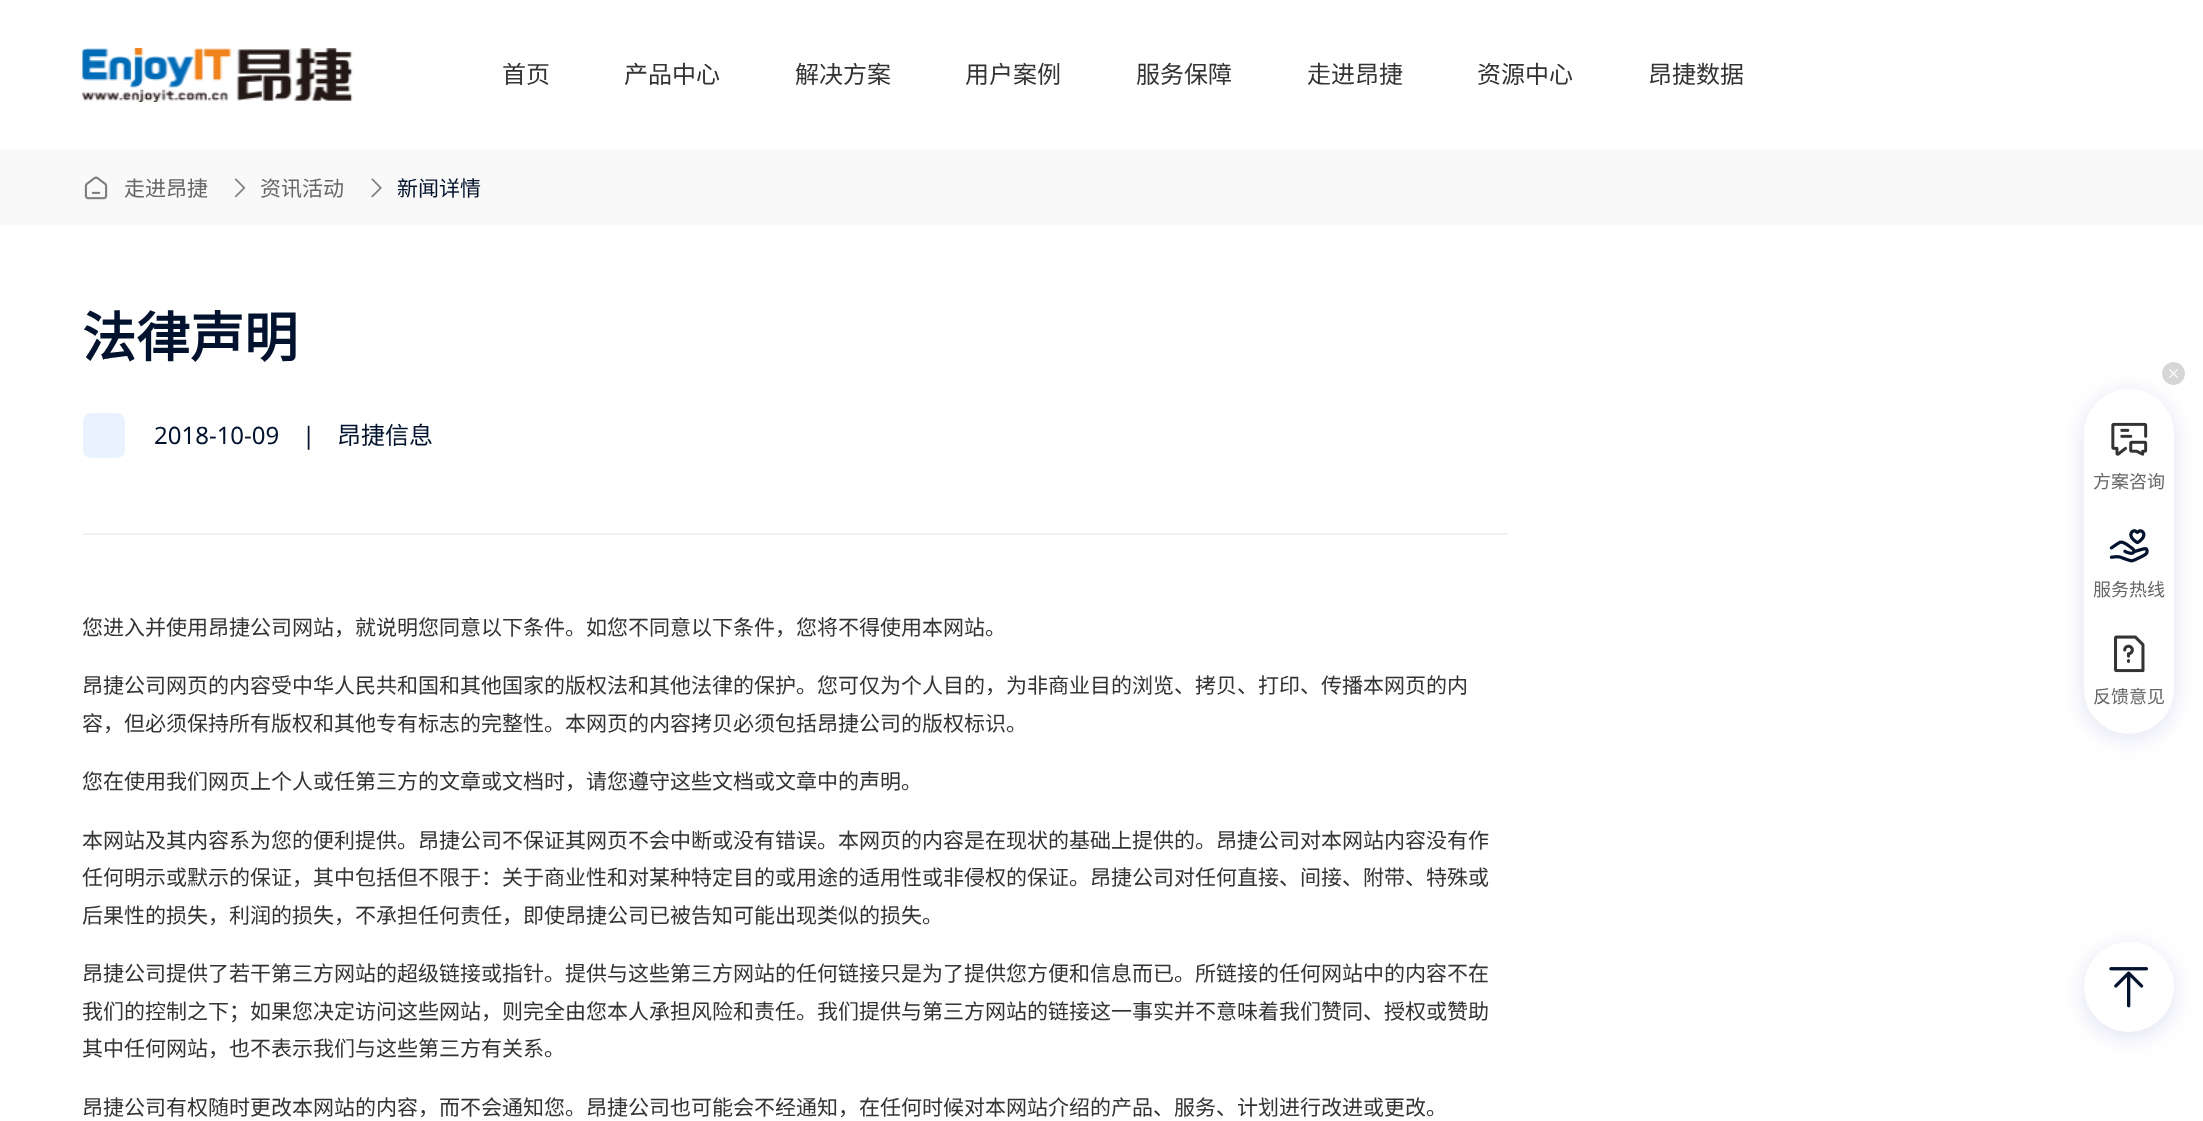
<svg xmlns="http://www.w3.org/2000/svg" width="2203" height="1121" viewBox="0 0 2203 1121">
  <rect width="100%" height="100%" fill="#fff"/>
  <image x="82" y="48" width="271" height="54" href="img/1.png"/>
  <path d="M0 150h2203v75H0z" fill="#f9f9f9"/>
  <image x="84" y="176" width="24" height="24" href="img/2.png"/>
  <image x="234" y="178" width="12" height="20" href="img/3.png"/>
  <image x="371" y="178" width="11" height="20" href="img/4.png"/>
  <path d="M83 533h1425v2H83z" fill="#f0f0f0"/>
  <rect x="83" y="413" width="42" height="45" rx="8" fill="#e9f2ff"/>
  <rect x="2084" y="393" width="90" height="345" rx="45" fill="#000d921f" filter="blur(11px)"/>
  <rect x="2084" y="389" width="90" height="345" rx="45" fill="#fff"/>
  <image x="2162" y="362" width="23" height="23" href="img/5.png"/>
  <image x="2111" y="422" width="37" height="34" href="img/6.png"/>
  <image x="2109" y="529" width="40" height="34" href="img/7.png"/>
  <image x="2114" y="635" width="31" height="38" href="img/8.png"/>
  <rect x="2084" y="947" width="90" height="90" rx="45" fill="#000d921f" filter="blur(11px)"/>
  <circle cx="2129" cy="987" r="45" fill="#fff"/>
  <image x="2109" y="967" width="40" height="41" href="img/9.png"/>
  <g font-family="Noto Sans CJK SC" font-size="24" fill="#333">
    <text x="502" y="83">首页</text>
    <text x="624" y="83">产品中心</text>
    <text x="795" y="83">解决方案</text>
    <text x="965" y="83">用户案例</text>
    <text x="1136" y="83">服务保障</text>
    <text x="1307" y="83">走进昂捷</text>
    <text x="1477" y="83">资源中心</text>
    <text x="1648" y="83">昂捷数据</text>
  </g>
  <g font-family="Noto Sans CJK SC" font-size="21" fill="#666">
    <text x="124" y="196">走进昂捷</text>
    <text x="260" y="196">资讯活动</text>
  </g>
  <text x="397" y="196" font-family="Noto Sans CJK SC" font-size="21" fill="#00122e">新闻详情</text>
  <text x="82" y="357" font-family="Noto Sans CJK SC" font-size="54" font-weight="bold" fill="#00122e">法律声明</text>
  <g font-family="Noto Sans" font-size="24" fill="#00122e">
    <text x="154" y="444">2018-10-09</text>
    <text x="302" y="444">|</text>
  </g>
  <text x="337" y="444" font-family="Noto Sans CJK SC" font-size="24" fill="#00122e">昂捷信息</text>
  <g font-family="Noto Sans CJK SC" font-size="21" fill="#333">
    <text x="82" y="635">您进入并使用昂捷公司网站，就说明您同意以下条件。如您不同意以下条件，您将不得使用本网站。</text>
    <text x="82" y="693">昂捷公司网页的内容受中华人民共和国和其他国家的版权法和其他法律的保护。您可仅为个人目的，为非商业目的浏览、拷贝、打印、传播本网页的内</text>
    <text x="82" y="731">容，但必须保持所有版权和其他专有标志的完整性。本网页的内容拷贝必须包括昂捷公司的版权标识。</text>
    <text x="82" y="789">您在使用我们网页上个人或任第三方的文章或文档时，请您遵守这些文档或文章中的声明。</text>
    <text x="82" y="848">本网站及其内容系为您的便利提供。昂捷公司不保证其网页不会中断或没有错误。本网页的内容是在现状的基础上提供的。昂捷公司对本网站内容没有作</text>
    <text x="82" y="885">任何明示或默示的保证，其中包括但不限于：关于商业性和对某种特定目的或用途的适用性或非侵权的保证。昂捷公司对任何直接、间接、附带、特殊或</text>
    <text x="82" y="923">后果性的损失，利润的损失，不承担任何责任，即使昂捷公司已被告知可能出现类似的损失。</text>
    <text x="82" y="981">昂捷公司提供了若干第三方网站的超级链接或指针。提供与这些第三方网站的任何链接只是为了提供您方便和信息而已。所链接的任何网站中的内容不在</text>
    <text x="82" y="1019">我们的控制之下；如果您决定访问这些网站，则完全由您本人承担风险和责任。我们提供与第三方网站的链接这一事实并不意味着我们赞同、授权或赞助</text>
    <text x="82" y="1056">其中任何网站，也不表示我们与这些第三方有关系。</text>
    <text x="82" y="1115">昂捷公司有权随时更改本网站的内容，而不会通知您。昂捷公司也可能会不经通知，在任何时候对本网站介绍的产品、服务、计划进行改进或更改。</text>
  </g>
  <g font-family="Noto Sans CJK SC" font-size="18" fill="#666">
    <text x="2093" y="488">方案咨询</text>
    <text x="2093" y="596">服务热线</text>
    <text x="2093" y="703">反馈意见</text>
  </g>
</svg>
